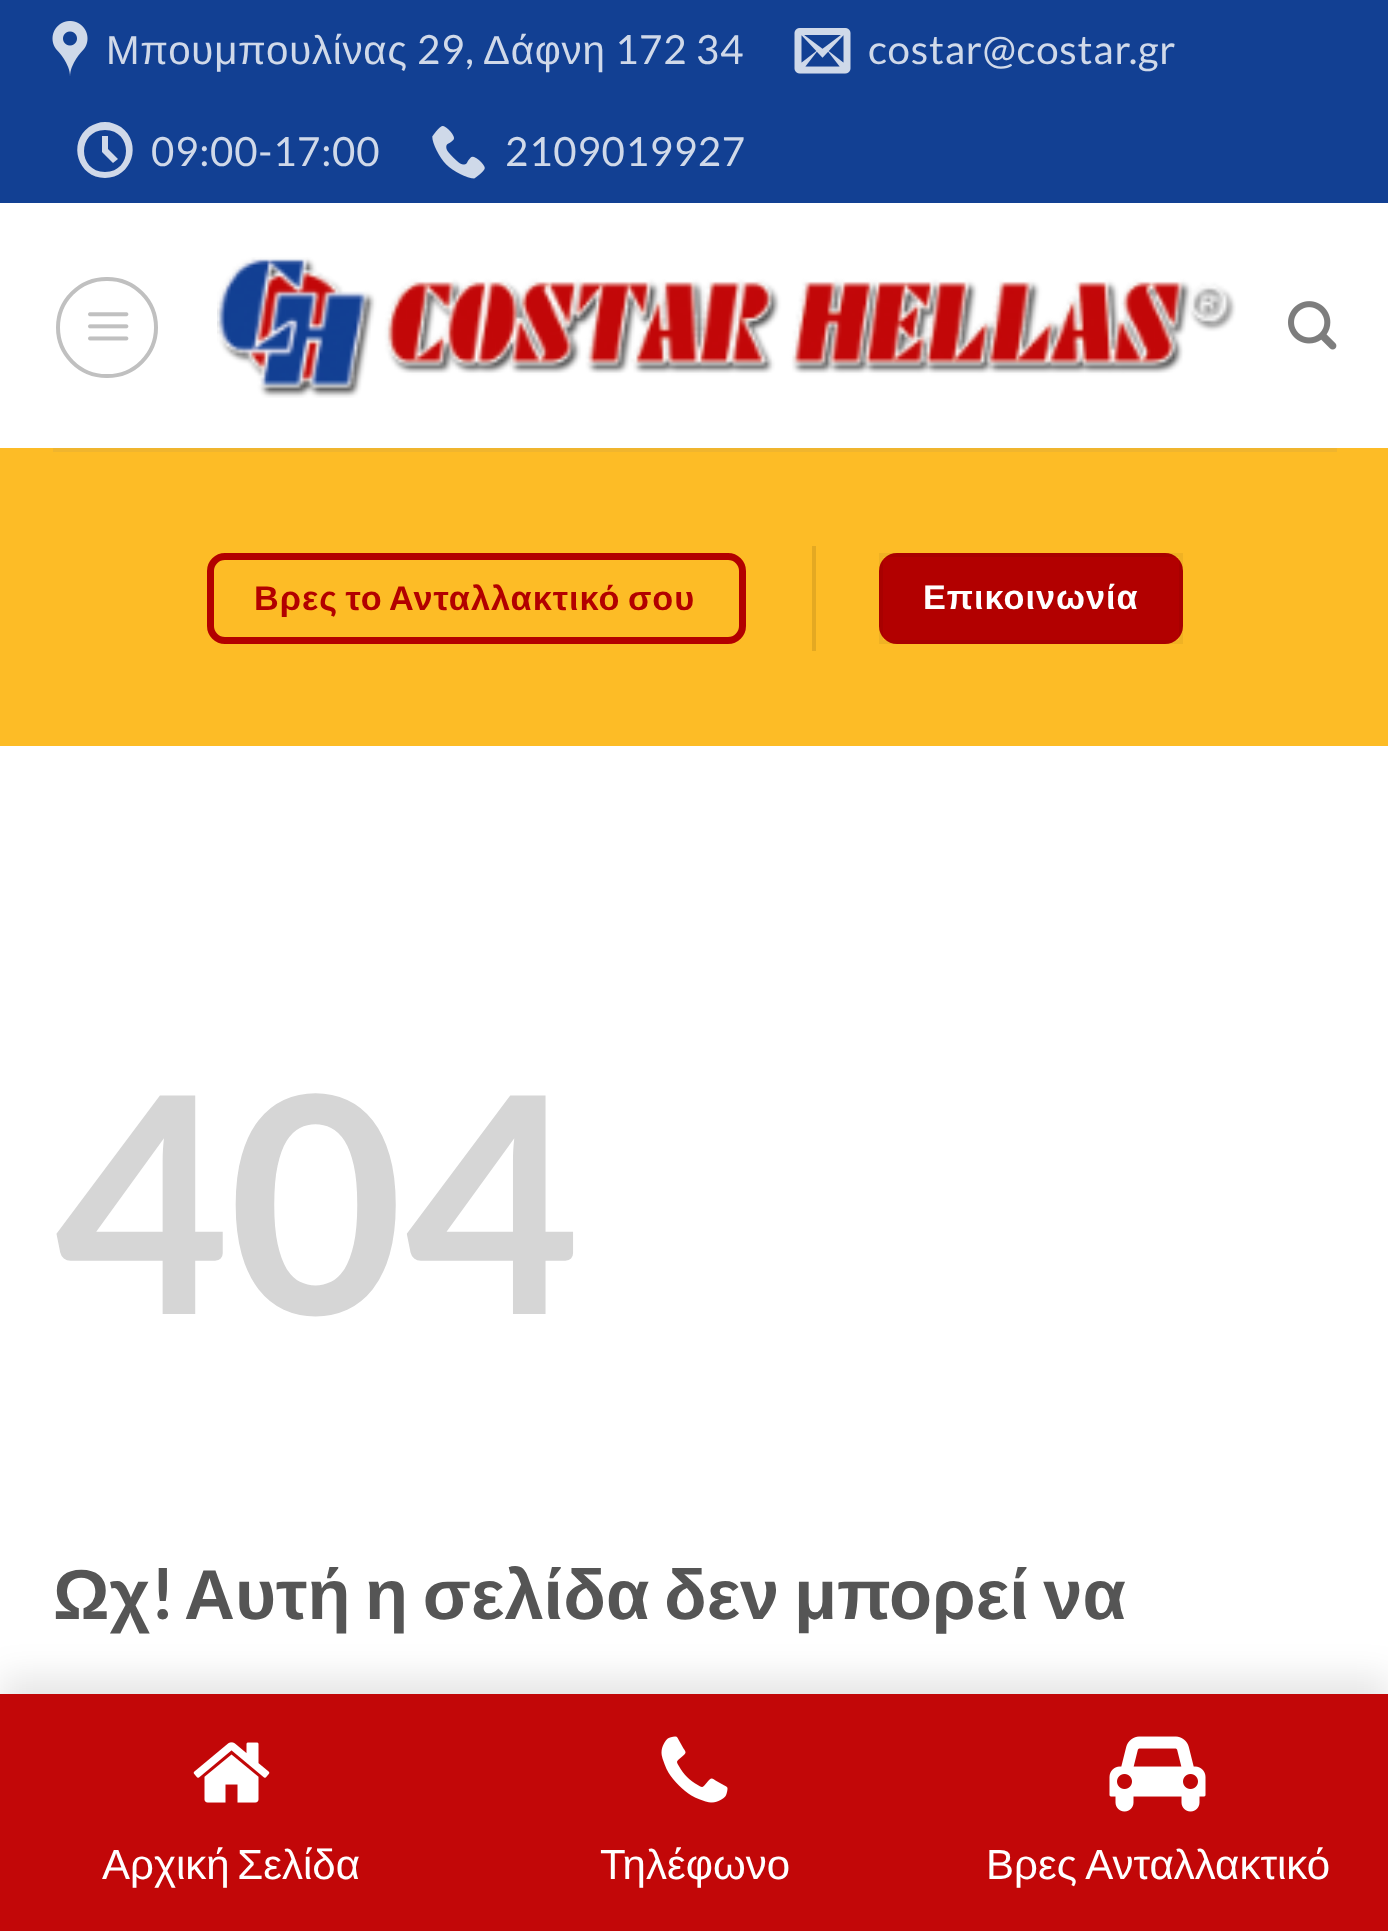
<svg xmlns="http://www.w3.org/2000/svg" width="1388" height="1931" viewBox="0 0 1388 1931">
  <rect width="100%" height="100%" fill="#fff"/>
  <path d="M0 0h1388v203H0z" fill="#124093"/>
  <image x="52" y="21" width="36" height="55" href="img/1.png"/>
  <image x="794" y="28" width="57" height="46" href="img/2.png"/>
  <path d="M113 163L102 152V136H108V149L118 159ZM105 122C99 122 94 124 89 127C67 143 78 178 105 178C132 178 143 143 121 127C116 124 111 122 105 122ZM105 172C77 172 77 130 105 130C133 130 133 172 105 172Z" fill="#d0d9e9"/>
  <image x="432" y="126" width="53" height="53" href="img/3.png"/>
  <rect x="58" y="279" width="98" height="97" rx="48.5" fill="none" stroke="#c0c0c0" stroke-width="4"/>
  <image x="88" y="312" width="41" height="29" href="img/4.png"/>
  <image x="217" y="257" width="1019" height="141" href="img/5.png"/>
  <image x="1288" y="301" width="49" height="49" href="img/6.png"/>
  <path d="M0 448h1388v298H0z" fill="#fdbc26"/>
  <path d="M53 448h1284v4H53z" fill="#f0b52e"/>
  <rect x="210.5" y="556.5" width="532" height="84" rx="14.5" fill="none" stroke="#b20000" stroke-width="7"/>
  <path d="M812 546h4v105H812z" fill="#e4a922"/>
  <rect x="879" y="553" width="304" height="91" rx="18" fill="#b20000"/>
  <path d="M881 555h300v87H881z" fill="none" stroke="#0000000d" stroke-width="4"/>
  <path d="M0 1677h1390v238H0z" fill="#0000001a" filter="blur(17.5px)"/>
  <path d="M0 1694h1388v237H0z" fill="#c20708"/>
  <image x="193" y="1742" width="77" height="61" href="img/7.png"/>
  <image x="661" y="1736" width="67" height="67" href="img/8.png"/>
  <image x="1109" y="1736" width="97" height="76" href="img/9.png"/>
  <text x="106" y="64" font-family="Liberation Sans" font-size="40.25" letter-spacing="0.75" fill="#d0d9e9">Μπουμπουλίνας</text>
  <text x="417" y="64" font-family="Lato" font-size="40.25" letter-spacing="0.75" fill="#d0d9e9">29,</text>
  <text x="483" y="64" font-family="Liberation Sans" font-size="40.25" letter-spacing="0.75" fill="#d0d9e9">Δάφνη</text>
  <g font-family="Lato" font-size="40.25" letter-spacing="0.75" fill="#d0d9e9">
    <text x="615" y="64">172 34</text>
    <text x="868" y="64">costar@costar.gr</text>
    <text x="151" y="166">09:00-17:00</text>
    <text x="505" y="166">2109019927</text>
  </g>
  <text x="254" y="610" word-spacing="-3" font-family="Liberation Sans" font-size="34.25" font-weight="bold" letter-spacing="1" fill="#b20000">Βρες το Ανταλλακτικό σου</text>
  <text x="923" y="609" font-family="Liberation Sans" font-size="34.25" font-weight="bold" letter-spacing="1" fill="#fff">Επικοινωνία</text>
  <text x="53" y="1314" font-family="Lato" font-size="302" font-weight="bold" fill="#d6d6d6">404</text>
  <text x="53" y="1619" font-family="Liberation Sans" font-size="70.5" font-weight="bold" fill="#555">Ωχ</text>
  <text x="150" y="1619" font-family="Lato" font-size="70.5" font-weight="bold" fill="#555">!</text>
  <text x="184" y="1619" word-spacing="-5" font-family="Liberation Sans" font-size="70.5" font-weight="bold" fill="#555">Αυτή η σελίδα δεν μπορεί να</text>
  <g font-family="Liberation Sans" font-size="42" fill="#fff">
    <text x="102" y="1879" word-spacing="-4">Αρχική Σελίδα</text>
    <text x="600" y="1879">Τηλέφωνο</text>
    <text x="986" y="1879" word-spacing="-1">Βρες Ανταλλακτικό</text>
  </g>
</svg>
